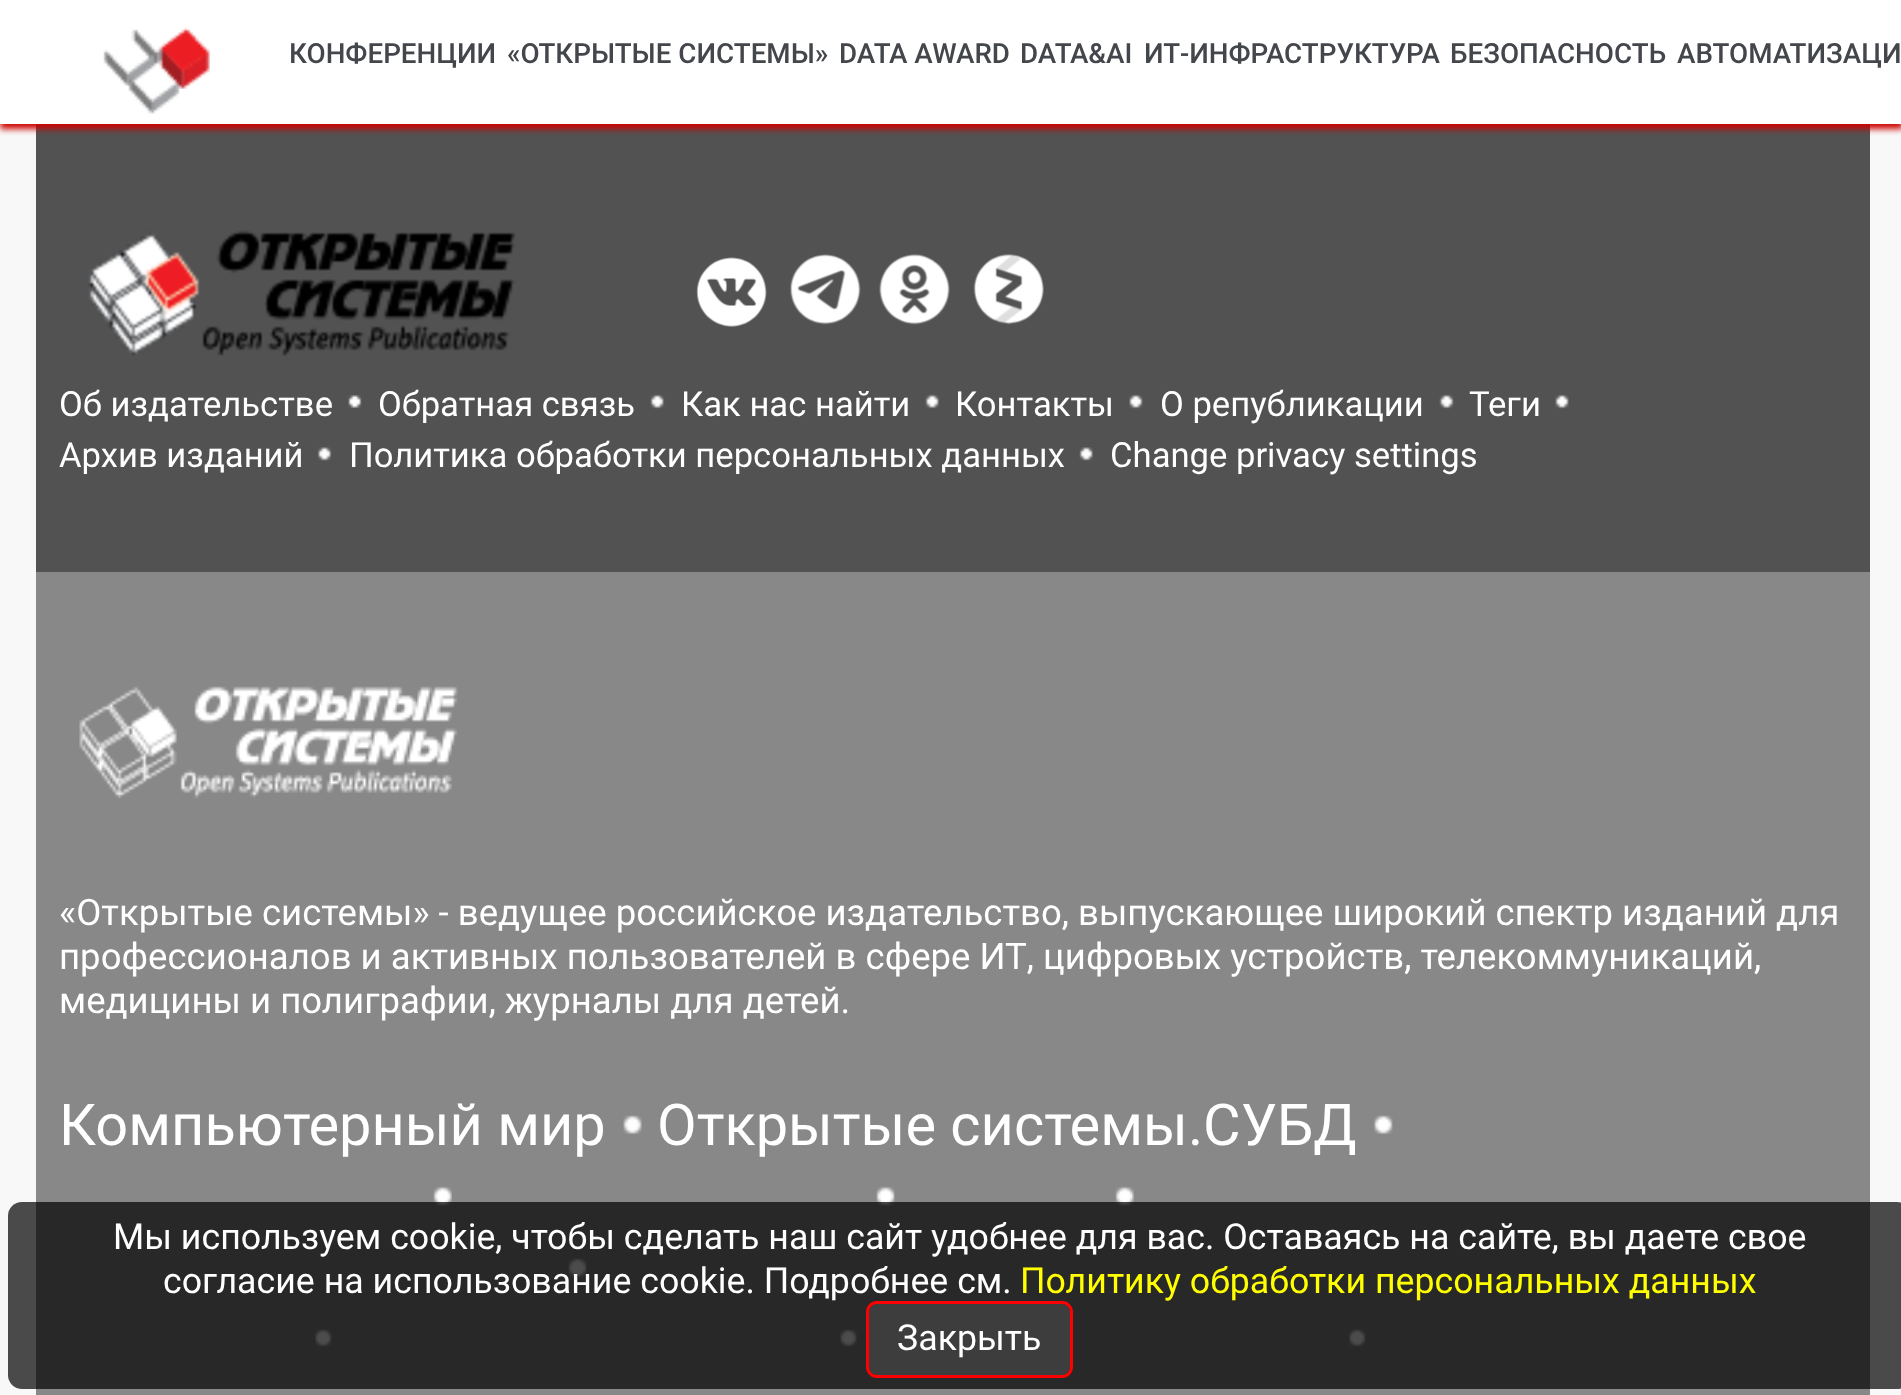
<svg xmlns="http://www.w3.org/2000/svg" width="1901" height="1395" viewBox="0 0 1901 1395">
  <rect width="100%" height="100%" fill="#f8f8f8"/>
  <path d="M36 124h1834v448H36z" fill="#525252"/>
  <path d="M0 6h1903v123H0z" fill="#cd0400" filter="blur(3px)"/>
  <path d="M0 0h1901v124H0z" fill="#fff"/>
  <image x="103" y="27" width="107" height="87" href="img/1.png"/>
  <path d="M36 572h1834v823H36z" fill="#888"/>
  <image x="88" y="230" width="428" height="126" href="img/2.png"/>
  <image x="696" y="257" width="71" height="70" href="img/3.png"/>
  <image x="790" y="254" width="71" height="71" href="img/4.png"/>
  <image x="879" y="254" width="71" height="71" href="img/5.png"/>
  <image x="973" y="254" width="71" height="71" href="img/6.png"/>
  <image x="348" y="395" width="14" height="13" href="img/7.png"/>
  <image x="650" y="394" width="15" height="15" href="img/8.png"/>
  <image x="925" y="394" width="15" height="15" href="img/8.png"/>
  <image x="1129" y="394" width="14" height="15" href="img/9.png"/>
  <image x="1439" y="394" width="15" height="15" href="img/10.png"/>
  <image x="1555" y="394" width="14" height="15" href="img/11.png"/>
  <image x="317" y="447" width="15" height="14" href="img/12.png"/>
  <image x="1079" y="447" width="14" height="14" href="img/13.png"/>
  <image x="79" y="686" width="379" height="113" href="img/14.png"/>
  <image x="623" y="1115" width="19" height="19" href="img/15.png"/>
  <image x="1373" y="1115" width="20" height="19" href="img/16.png"/>
  <image x="433" y="1186" width="19" height="20" href="img/17.png"/>
  <image x="876" y="1186" width="19" height="20" href="img/18.png"/>
  <image x="1115" y="1186" width="19" height="20" href="img/17.png"/>
  <image x="568" y="1258" width="19" height="20" href="img/19.png"/>
  <image x="315" y="1329" width="17" height="18" href="img/20.png"/>
  <image x="840" y="1329" width="17" height="18" href="img/21.png"/>
  <image x="1349" y="1329" width="17" height="18" href="img/20.png"/>
  <rect x="8" y="1202" width="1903" height="187" rx="14" fill="#000000b3"/>
  <rect x="869" y="1304" width="201" height="71" rx="8" fill="#ffffff1a"/>
  <rect x="867.5" y="1302.5" width="204" height="74" rx="9.5" fill="none" stroke="#f00" stroke-width="3"/>
  <g font-family="Roboto" font-size="27.75" font-weight="500" fill="#43464b">
    <text x="289" y="63">КОНФЕРЕНЦИИ</text>
    <text x="507" y="63">«ОТКРЫТЫЕ СИСТЕМЫ»</text>
    <text x="839" y="63">DATA AWARD</text>
    <text x="1020" y="63">DATA&amp;AI</text>
    <text x="1144" y="63">ИТ-ИНФРАСТРУКТУРА</text>
    <text x="1450" y="63">БЕЗОПАСНОСТЬ</text>
    <text x="1677" y="63">АВТОМАТИЗАЦИ</text>
  </g>
  <g font-family="Roboto" font-size="34.65" fill="#fff">
    <text x="59" y="416">Об издательстве</text>
    <text x="378" y="416">Обратная связь</text>
    <text x="681" y="416">Как нас найти</text>
    <text x="955" y="416">Контакты</text>
    <text x="1160" y="416">О републикации</text>
    <text x="1469" y="416">Теги</text>
    <text x="59" y="467">Архив изданий</text>
    <text x="349" y="467">Политика обработки персональных данных</text>
    <text x="1110" y="467">Change privacy settings</text>
  </g>
  <g font-family="Roboto" font-size="36.6" fill="#fff">
    <text x="59" y="925">«Открытые системы» - ведущее российское издательство, выпускающее широкий спектр изданий для</text>
    <text x="59" y="969">профессионалов и активных пользователей в сфере ИТ, цифровых устройств, телекоммуникаций,</text>
    <text x="59" y="1013">медицины и полиграфии, журналы для детей.</text>
  </g>
  <g font-family="Roboto" font-size="57.75" fill="#fff">
    <text x="59" y="1145">Компьютерный мир</text>
    <text x="657" y="1145">Открытые системы.СУБД</text>
  </g>
  <g font-family="Roboto" font-size="35.75" fill="#fff">
    <text x="113" y="1249">Мы используем cookie, чтобы сделать наш сайт удобнее для вас. Оставаясь на сайте, вы даете свое</text>
    <text x="163" y="1293">согласие на использование cookie. Подробнее см.</text>
  </g>
  <text x="1020" y="1293" font-family="Roboto" font-size="35.75" fill="#ff0">Политику обработки персональных данных</text>
  <text x="897" y="1350" font-family="Roboto" font-size="35.75" fill="#fff">Закрыть</text>
</svg>
